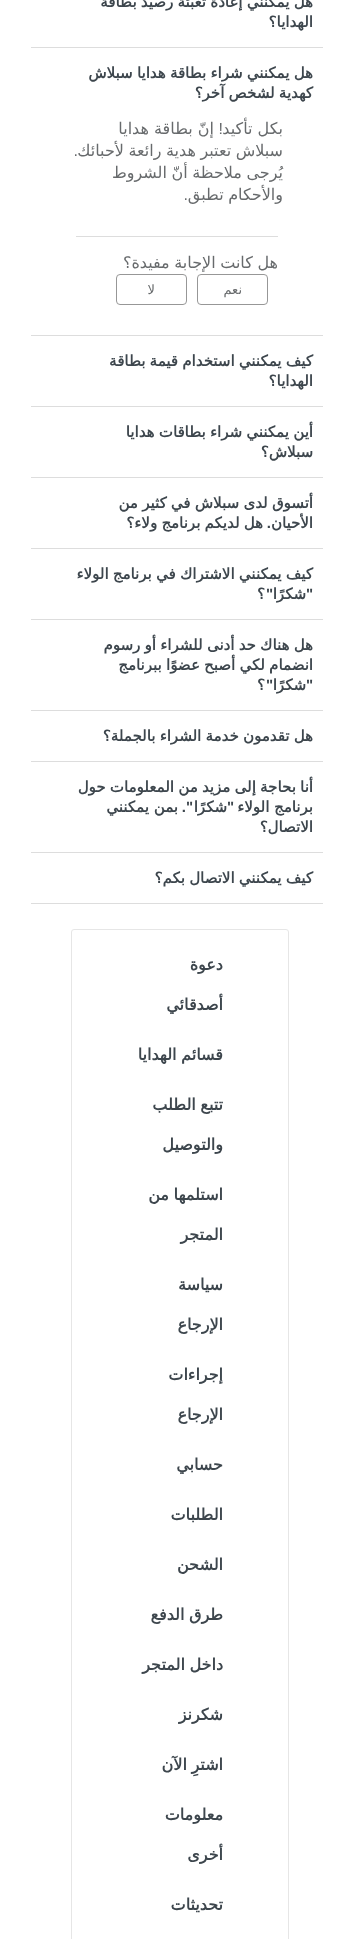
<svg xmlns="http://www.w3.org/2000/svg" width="354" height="1939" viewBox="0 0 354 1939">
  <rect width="100%" height="100%" fill="#fff"/>
  <path d="M31 47h292v1H31z" fill="#ddd"/>
  <path d="M31 335h292v1H31z" fill="#ddd"/>
  <path d="M76 236h202v1H76z" fill="#ddd"/>
  <rect x="197.5" y="274.5" width="70" height="30" rx="3.5" fill="none" stroke="#979797"/>
  <rect x="116.5" y="274.5" width="70" height="30" rx="3.5" fill="none" stroke="#979797"/>
  <path d="M31 406h292v1H31z" fill="#ddd"/>
  <path d="M31 477h292v1H31z" fill="#ddd"/>
  <path d="M31 548h292v1H31z" fill="#ddd"/>
  <path d="M31 619h292v1H31z" fill="#ddd"/>
  <path d="M31 710h292v1H31z" fill="#ddd"/>
  <path d="M31 761h292v1H31z" fill="#ddd"/>
  <path d="M31 852h292v1H31z" fill="#ddd"/>
  <path d="M31 903h292v1H31z" fill="#ddd"/>
  <rect x="71.5" y="929.5" width="217" height="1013" rx="2.5" fill="none" stroke="#e6e6e6"/>
  <g font-family="DejaVu Sans" font-size="15" font-weight="bold" direction="rtl" fill="#3d464d">
    <text x="313" y="7" word-spacing="-0.5">هل يمكنني إعادة تعبئة رصيد بطاقة</text>
    <text x="313" y="27">الهدايا؟</text>
    <text x="313" y="78" word-spacing="-0.5">هل يمكنني شراء بطاقة هدايا سبلاش</text>
    <text x="313" y="98" word-spacing="-0.5">كهدية لشخص آخر؟</text>
  </g>
  <text x="283" y="134" font-family="DejaVu Sans" font-size="16" direction="rtl" fill="#676a6c">بكل تأكيد</text>
  <text x="223" y="134" font-family="Liberation Sans" font-size="16" direction="rtl" fill="#676a6c">!</text>
  <g font-family="DejaVu Sans" font-size="16" direction="rtl" fill="#676a6c">
    <text x="214" y="134">إنّ بطاقة هدايا</text>
    <text x="283" y="156" word-spacing="-0.5">سبلاش تعتبر هدية رائعة لأحبائك</text>
  </g>
  <text x="78" y="156" font-family="Liberation Sans" font-size="16" direction="rtl" fill="#676a6c">.</text>
  <g font-family="DejaVu Sans" font-size="16" direction="rtl" fill="#676a6c">
    <text x="283" y="178" word-spacing="-0.5">يُرجى ملاحظة أنّ الشروط</text>
    <text x="283" y="200" word-spacing="-0.5">والأحكام تطبق</text>
  </g>
  <text x="188" y="200" font-family="Liberation Sans" font-size="16" direction="rtl" fill="#676a6c">.</text>
  <text x="278" y="268" word-spacing="-0.5" font-family="DejaVu Sans" font-size="16" direction="rtl" fill="#676a6c">هل كانت الإجابة مفيدة؟</text>
  <g font-family="DejaVu Sans" font-size="13" direction="rtl" fill="#676a6c">
    <text x="242" y="294">نعم</text>
    <text x="155" y="294">لا</text>
  </g>
  <g font-family="DejaVu Sans" font-size="15" font-weight="bold" direction="rtl" fill="#3d464d">
    <text x="313" y="366" word-spacing="-0.5">كيف يمكنني استخدام قيمة بطاقة</text>
    <text x="313" y="386">الهدايا؟</text>
    <text x="313" y="437" word-spacing="-0.5">أين يمكنني شراء بطاقات هدايا</text>
    <text x="313" y="457">سبلاش؟</text>
    <text x="313" y="508" word-spacing="-0.5">أتسوق لدى سبلاش في كثير من</text>
    <text x="313" y="528">الأحيان</text>
  </g>
  <text x="271" y="528" font-family="Liberation Sans" font-size="15" font-weight="bold" direction="rtl" fill="#3d464d">.</text>
  <g font-family="DejaVu Sans" font-size="15" font-weight="bold" direction="rtl" fill="#3d464d">
    <text x="263" y="528" word-spacing="-0.5">هل لديكم برنامج ولاء؟</text>
    <text x="313" y="579" word-spacing="-0.5">كيف يمكنني الاشتراك في برنامج الولاء</text>
  </g>
  <text x="313" y="599" font-family="Liberation Sans" font-size="15" font-weight="bold" direction="rtl" fill="#3d464d">"</text>
  <text x="306" y="599" font-family="DejaVu Sans" font-size="15" font-weight="bold" direction="rtl" fill="#3d464d">شكرًا</text>
  <text x="273" y="599" font-family="Liberation Sans" font-size="15" font-weight="bold" direction="rtl" fill="#3d464d">"</text>
  <g font-family="DejaVu Sans" font-size="15" font-weight="bold" direction="rtl" fill="#3d464d">
    <text x="265" y="599">؟</text>
    <text x="313" y="650" word-spacing="-0.5">هل هناك حد أدنى للشراء أو رسوم</text>
    <text x="313" y="670" word-spacing="-0.5">انضمام لكي أصبح عضوًا ببرنامج</text>
  </g>
  <text x="313" y="690" font-family="Liberation Sans" font-size="15" font-weight="bold" direction="rtl" fill="#3d464d">"</text>
  <text x="306" y="690" font-family="DejaVu Sans" font-size="15" font-weight="bold" direction="rtl" fill="#3d464d">شكرًا</text>
  <text x="273" y="690" font-family="Liberation Sans" font-size="15" font-weight="bold" direction="rtl" fill="#3d464d">"</text>
  <g font-family="DejaVu Sans" font-size="15" font-weight="bold" direction="rtl" fill="#3d464d">
    <text x="265" y="690">؟</text>
    <text x="313" y="741" word-spacing="-0.5">هل تقدمون خدمة الشراء بالجملة؟</text>
    <text x="313" y="792" word-spacing="-0.5">أنا بحاجة إلى مزيد من المعلومات حول</text>
    <text x="313" y="812">برنامج الولاء</text>
  </g>
  <text x="234" y="812" font-family="Liberation Sans" font-size="15" font-weight="bold" direction="rtl" fill="#3d464d">"</text>
  <text x="227" y="812" font-family="DejaVu Sans" font-size="15" font-weight="bold" direction="rtl" fill="#3d464d">شكرًا</text>
  <text x="193" y="812" font-family="Liberation Sans" font-size="15" font-weight="bold" direction="rtl" fill="#3d464d">".</text>
  <g font-family="DejaVu Sans" font-size="15" font-weight="bold" direction="rtl" fill="#3d464d">
    <text x="178" y="812">بمن يمكنني</text>
    <text x="313" y="832">الاتصال؟</text>
    <text x="313" y="883" word-spacing="-0.5">كيف يمكنني الاتصال بكم؟</text>
  </g>
  <g font-family="DejaVu Sans" font-size="16" font-weight="bold" direction="rtl" fill="#3d464d">
    <text x="223" y="970">دعوة</text>
    <text x="223" y="1010">أصدقائي</text>
    <text x="223" y="1060" word-spacing="-0.5">قسائم الهدايا</text>
    <text x="223" y="1110" word-spacing="-0.5">تتبع الطلب</text>
    <text x="223" y="1150">والتوصيل</text>
    <text x="223" y="1200" word-spacing="-0.5">استلمها من</text>
    <text x="223" y="1240">المتجر</text>
    <text x="223" y="1290">سياسة</text>
    <text x="223" y="1330">الإرجاع</text>
    <text x="223" y="1380">إجراءات</text>
    <text x="223" y="1420">الإرجاع</text>
    <text x="223" y="1470">حسابي</text>
    <text x="223" y="1520">الطلبات</text>
    <text x="223" y="1570">الشحن</text>
    <text x="223" y="1620" word-spacing="-0.5">طرق الدفع</text>
    <text x="223" y="1670" word-spacing="-0.5">داخل المتجر</text>
    <text x="223" y="1720">شكرنز</text>
    <text x="223" y="1770" word-spacing="-0.5">اشترِ الآن</text>
    <text x="223" y="1820">معلومات</text>
    <text x="223" y="1860">أخرى</text>
    <text x="223" y="1910">تحديثات</text>
  </g>
</svg>
